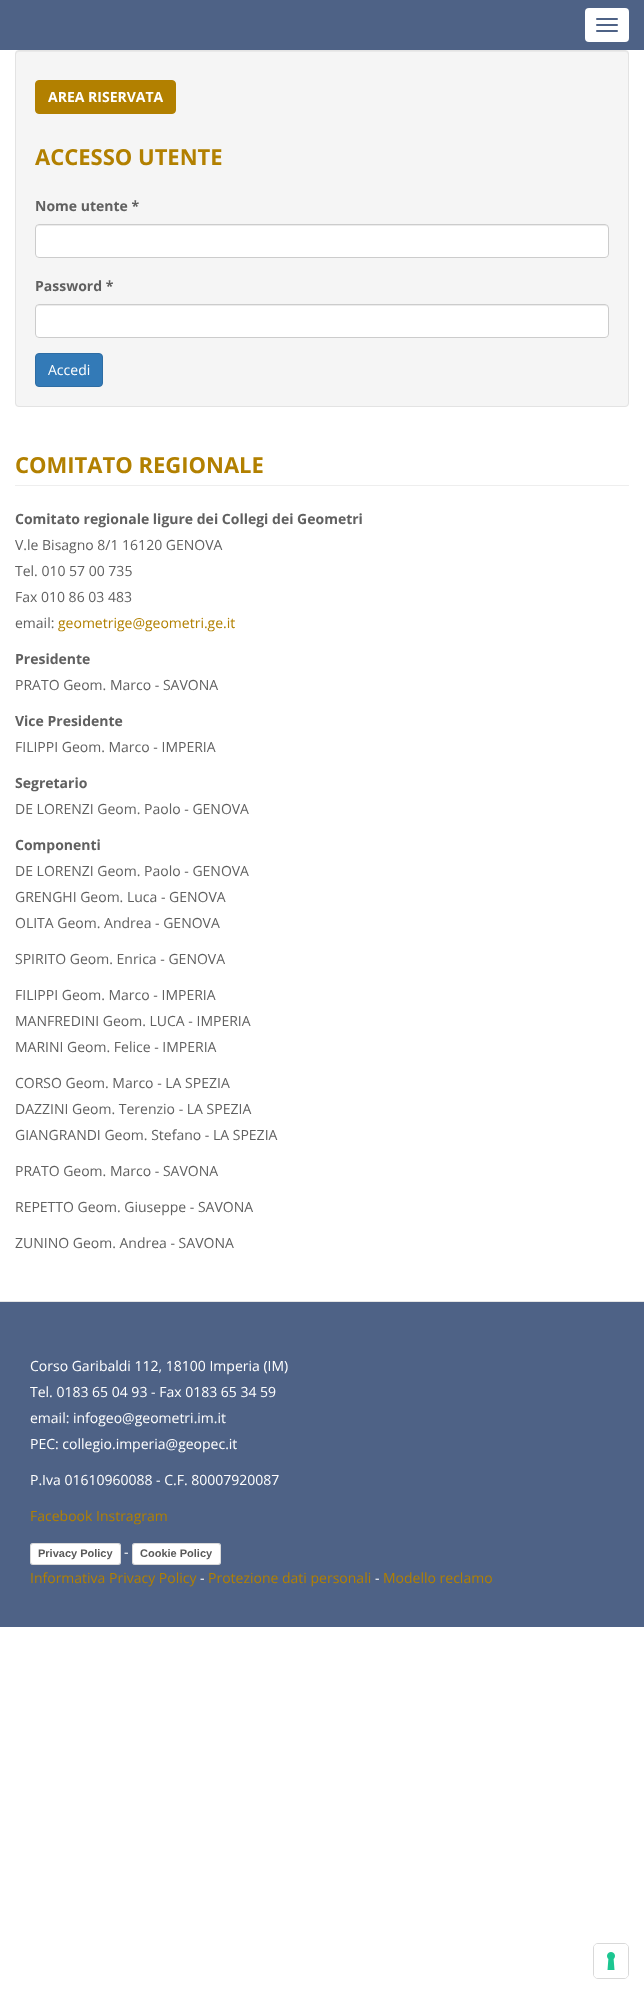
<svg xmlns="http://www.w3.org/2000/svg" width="644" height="1994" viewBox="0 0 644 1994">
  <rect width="100%" height="100%" fill="#fff"/>
  <path d="M0 0h644v50H0z" fill="#4e6286"/>
  <rect x="585" y="8" width="44" height="34" rx="4" fill="#fff"/>
  <rect x="596" y="18" width="22" height="2" rx="1" fill="#4e6286"/>
  <rect x="596" y="24" width="22" height="2" rx="1" fill="#4e6286"/>
  <rect x="596" y="30" width="22" height="2" rx="1" fill="#4e6286"/>
  <rect x="15" y="50" width="614" height="357" rx="4" fill="#f5f5f5"/>
  <path d="M19 52H625C627 52 628 53 628 55V54C628 52 627 51 625 51H19C17 51 16 52 16 54V55C16 53 17 52 19 52Z" fill="#e9e9e9"/>
  <rect x="15.5" y="50.5" width="613" height="356" rx="3.5" fill="none" stroke="#e3e3e3"/>
  <rect x="35.5" y="80.5" width="140" height="33" rx="3.5" fill="#b28000" stroke="#b28000"/>
  <rect x="35" y="224" width="574" height="34" rx="4" fill="#fff"/>
  <path d="M39 226H605C607 226 608 227 608 229V228C608 226 607 225 605 225H39C37 225 36 226 36 228V229C36 227 37 226 39 226Z" fill="#ececec"/>
  <rect x="35.5" y="224.5" width="573" height="33" rx="3.5" fill="none" stroke="#ccc"/>
  <rect x="35" y="304" width="574" height="34" rx="4" fill="#fff"/>
  <path d="M39 306H605C607 306 608 307 608 309V308C608 306 607 305 605 305H39C37 305 36 306 36 308V309C36 307 37 306 39 306Z" fill="#ececec"/>
  <rect x="35.5" y="304.5" width="573" height="33" rx="3.5" fill="none" stroke="#ccc"/>
  <rect x="35.5" y="353.5" width="67" height="33" rx="3.5" fill="#337ab7" stroke="#2e6da4"/>
  <path d="M15 485h614v1H15z" fill="#eee"/>
  <path d="M0 1302h644v325H0z" fill="#4e6286"/>
  <path d="M0 1301h644v1H0z" fill="#e5e5e5"/>
  <rect x="31" y="1545" width="89" height="20" rx="2" fill="#00000026" filter="blur(0.5px)"/>
  <rect x="30" y="1543" width="91" height="22" rx="3" fill="#fff"/>
  <rect x="30.5" y="1543.5" width="90" height="21" rx="2.5" fill="none" stroke="#00000026"/>
  <rect x="133" y="1545" width="87" height="20" rx="2" fill="#00000026" filter="blur(0.5px)"/>
  <rect x="132" y="1543" width="89" height="22" rx="3" fill="#fff"/>
  <rect x="132.5" y="1543.5" width="88" height="21" rx="2.5" fill="none" stroke="#00000026"/>
  <rect x="593.5" y="1943.5" width="35" height="35" rx="4.5" fill="none" stroke="#d9d9d9"/>
  <rect x="594" y="1944" width="34" height="34" rx="4" fill="#fff"/>
  <image x="607" y="1952" width="8" height="18" href="img/1.png"/>
  <text x="48" y="102" font-family="Open Sans" font-size="14" font-weight="bold" fill="#fff">AREA RISERVATA</text>
  <text x="35" y="165" font-family="Open Sans" font-size="22" font-weight="bold" fill="#b28000">ACCESSO UTENTE</text>
  <g font-family="Open Sans" font-size="14" font-weight="bold" fill="#606060">
    <text x="35" y="211">Nome utente *</text>
    <text x="35" y="291">Password *</text>
  </g>
  <text x="48" y="375" font-family="Open Sans" font-size="14" fill="#fff">Accedi</text>
  <text x="15" y="473" font-family="Open Sans" font-size="22" font-weight="bold" fill="#b28000">COMITATO REGIONALE</text>
  <text x="15" y="524" font-family="Open Sans" font-size="14" font-weight="bold" fill="#606060">Comitato regionale ligure dei Collegi dei Geometri</text>
  <g font-family="Open Sans" font-size="14" fill="#606060">
    <text x="15" y="550">V.le Bisagno 8/1 16120 GENOVA</text>
    <text x="15" y="576">Tel. 010 57 00 735</text>
    <text x="15" y="602">Fax 010 86 03 483</text>
    <text x="15" y="628">email:</text>
  </g>
  <text x="58" y="628" font-family="Open Sans" font-size="14" fill="#b28000">geometrige@geometri.ge.it</text>
  <text x="15" y="664" font-family="Open Sans" font-size="14" font-weight="bold" fill="#606060">Presidente</text>
  <text x="15" y="690" font-family="Open Sans" font-size="14" fill="#606060">PRATO Geom. Marco - SAVONA</text>
  <text x="15" y="726" font-family="Open Sans" font-size="14" font-weight="bold" fill="#606060">Vice Presidente</text>
  <text x="15" y="752" font-family="Open Sans" font-size="14" fill="#606060">FILIPPI Geom. Marco - IMPERIA</text>
  <text x="15" y="788" font-family="Open Sans" font-size="14" font-weight="bold" fill="#606060">Segretario</text>
  <text x="15" y="814" font-family="Open Sans" font-size="14" fill="#606060">DE LORENZI Geom. Paolo - GENOVA</text>
  <text x="15" y="850" font-family="Open Sans" font-size="14" font-weight="bold" fill="#606060">Componenti</text>
  <g font-family="Open Sans" font-size="14" fill="#606060">
    <text x="15" y="876">DE LORENZI Geom. Paolo - GENOVA</text>
    <text x="15" y="902">GRENGHI Geom. Luca - GENOVA</text>
    <text x="15" y="928">OLITA Geom. Andrea - GENOVA</text>
    <text x="15" y="964">SPIRITO Geom. Enrica - GENOVA</text>
    <text x="15" y="1000">FILIPPI Geom. Marco - IMPERIA</text>
    <text x="15" y="1026">MANFREDINI Geom. LUCA - IMPERIA</text>
    <text x="15" y="1052">MARINI Geom. Felice - IMPERIA</text>
    <text x="15" y="1088">CORSO Geom. Marco - LA SPEZIA</text>
    <text x="15" y="1114">DAZZINI Geom. Terenzio - LA SPEZIA</text>
    <text x="15" y="1140">GIANGRANDI Geom. Stefano - LA SPEZIA</text>
    <text x="15" y="1176">PRATO Geom. Marco - SAVONA</text>
    <text x="15" y="1212">REPETTO Geom. Giuseppe - SAVONA</text>
    <text x="15" y="1248">ZUNINO Geom. Andrea - SAVONA</text>
  </g>
  <g font-family="Open Sans" font-size="14" fill="#fff">
    <text x="30" y="1371">Corso Garibaldi 112, 18100 Imperia (IM)</text>
    <text x="30" y="1397">Tel. 0183 65 04 93 - Fax 0183 65 34 59</text>
    <text x="30" y="1423">email: infogeo@geometri.im.it</text>
    <text x="30" y="1449">PEC: collegio.imperia@geopec.it</text>
    <text x="30" y="1485">P.Iva 01610960088 - C.F. 80007920087</text>
  </g>
  <text x="30" y="1521" font-family="Open Sans" font-size="14" fill="#b28000">Facebook Instragram</text>
  <text x="38" y="1557" font-family="Liberation Sans" font-size="11" font-weight="bold" fill="#595959">Privacy Policy</text>
  <text x="124" y="1557" font-family="Open Sans" font-size="14" fill="#fff">-</text>
  <text x="140" y="1557" font-family="Liberation Sans" font-size="11" font-weight="bold" fill="#595959">Cookie Policy</text>
  <text x="30" y="1583" font-family="Open Sans" font-size="14" fill="#b28000">Informativa Privacy Policy</text>
  <text x="200" y="1583" font-family="Open Sans" font-size="14" fill="#fff">-</text>
  <text x="208" y="1583" font-family="Open Sans" font-size="14" fill="#b28000">Protezione dati personali</text>
  <text x="375" y="1583" font-family="Open Sans" font-size="14" fill="#fff">-</text>
  <text x="383" y="1583" font-family="Open Sans" font-size="14" fill="#b28000">Modello reclamo</text>
</svg>
